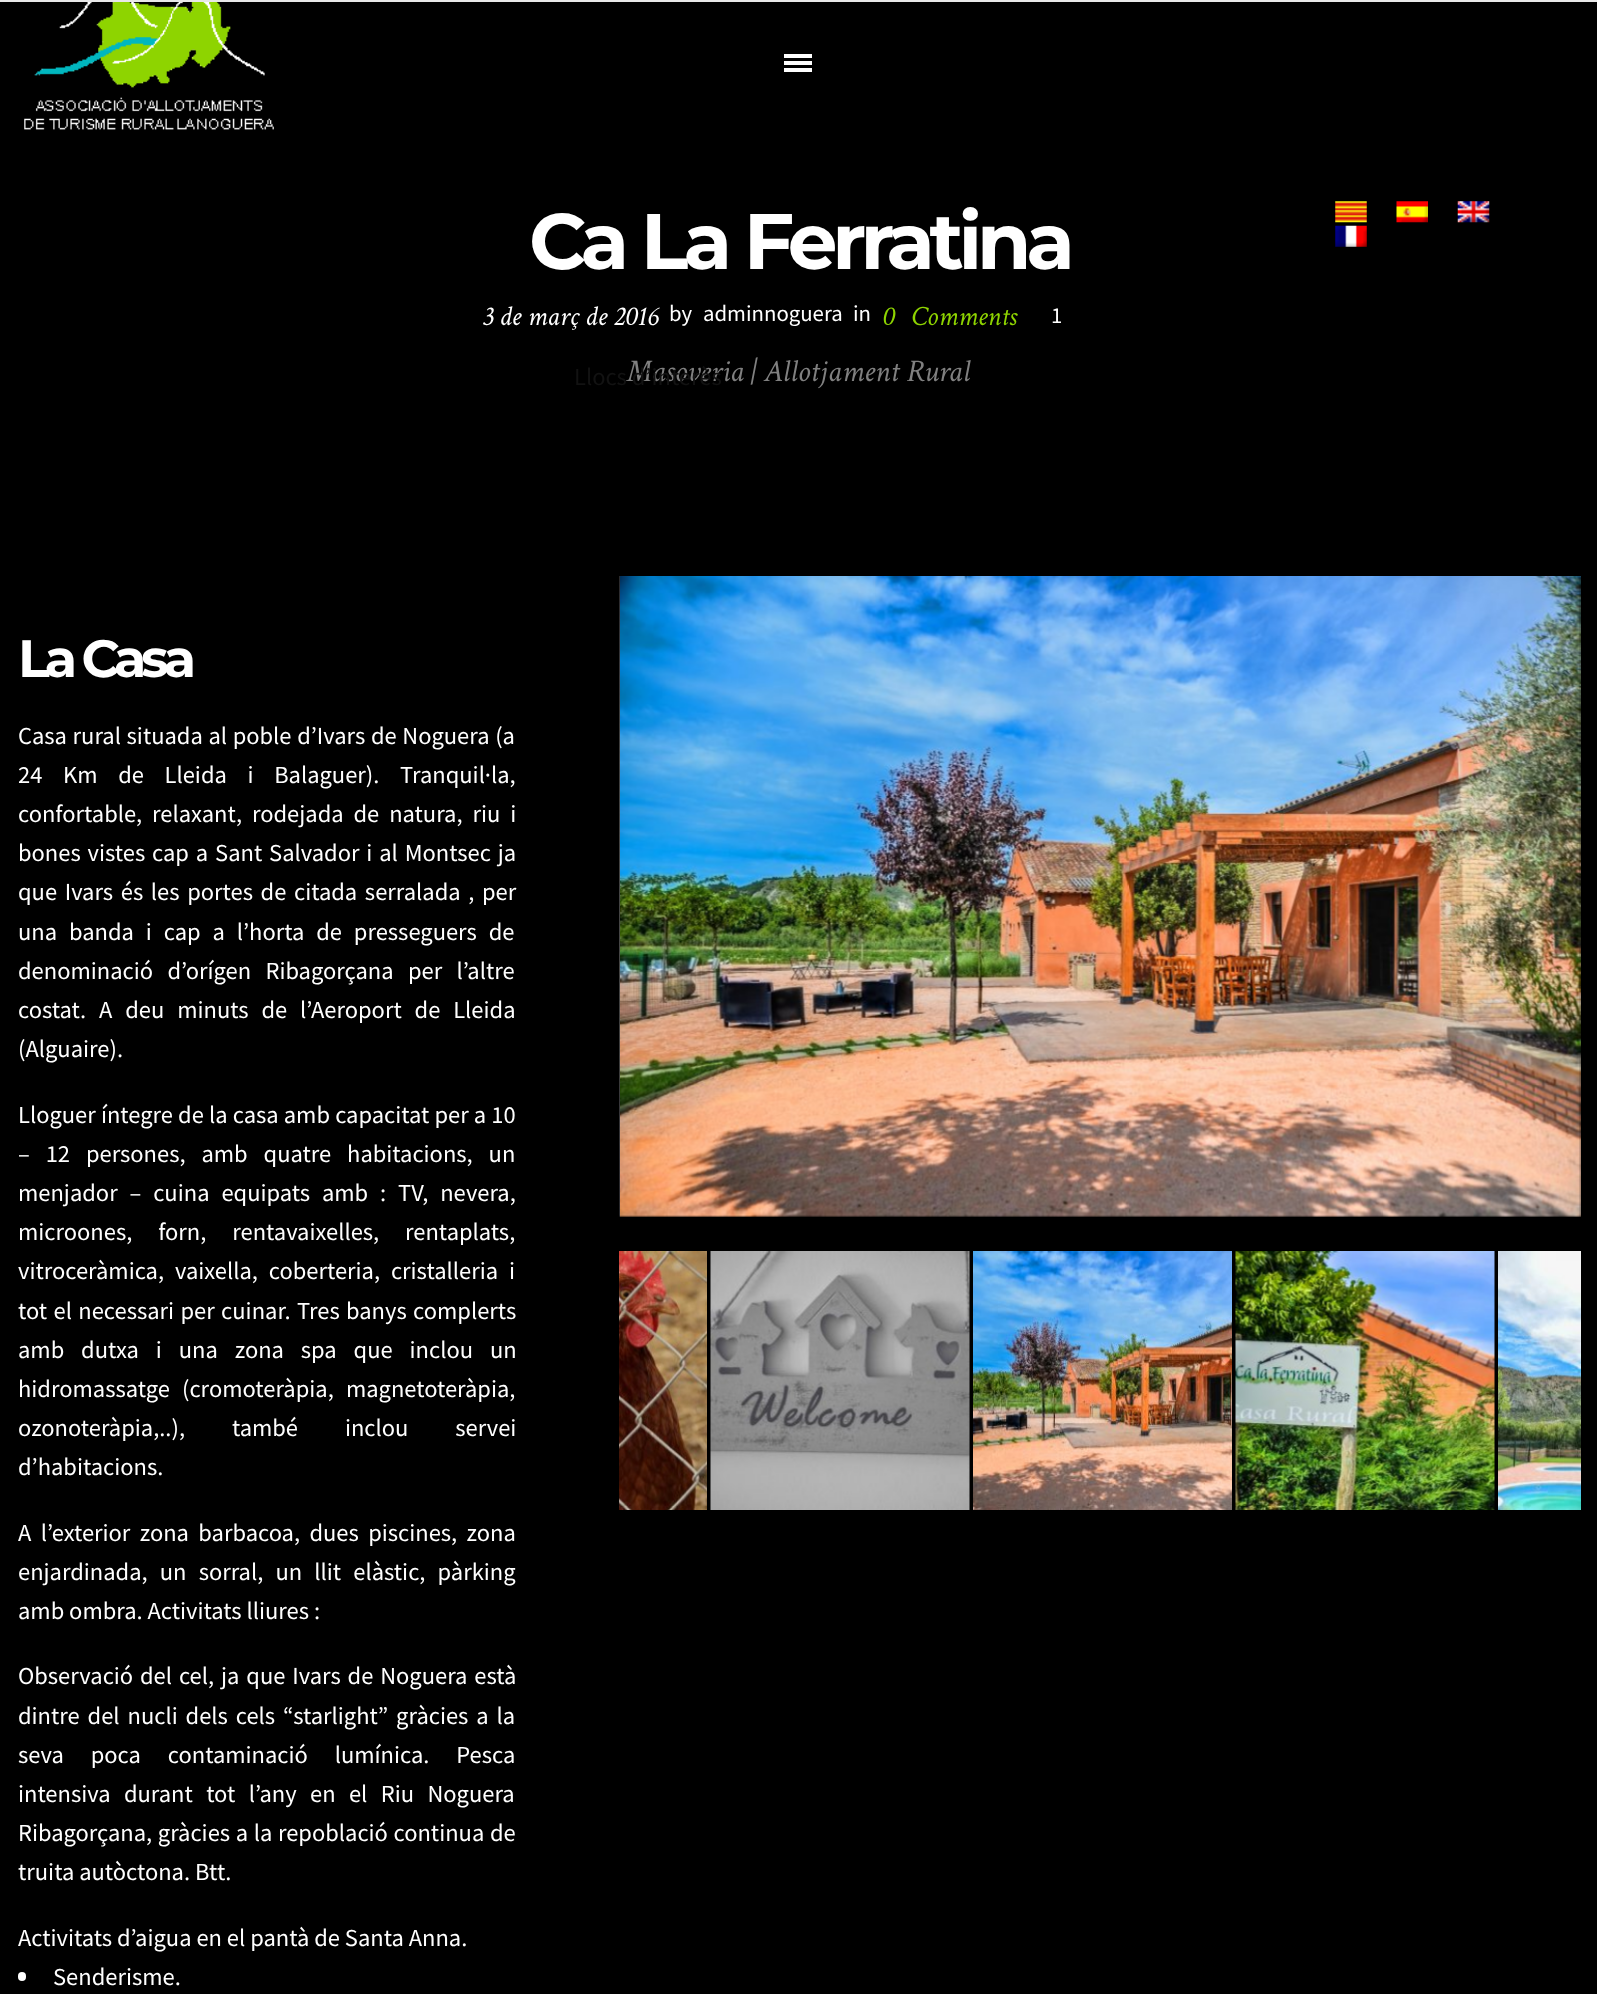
<svg xmlns="http://www.w3.org/2000/svg" width="1597" height="1994" viewBox="0 0 1597 1994">
  <rect width="100%" height="100%" fill="#000"/>
  <image x="24" y="2" width="250" height="128" href="img/1.png"/>
  <image x="1335" y="201" width="32" height="22" href="img/2.png"/>
  <image x="1396" y="201" width="32" height="22" href="img/3.png"/>
  <image x="1457" y="201" width="33" height="22" href="img/4.png"/>
  <image x="1335" y="225" width="32" height="22" href="img/5.png"/>
  <path d="M0 0h1597v2H0z" fill="#e8e8e8"/>
  <path d="M784 68h28v4H784z" fill="#fff"/>
  <path d="M784 61h28v4H784z" fill="#fff"/>
  <path d="M784 54h28v4H784z" fill="#fff"/>
  <rect x="18" y="1972" width="8" height="9" rx="4" fill="#fff"/>
  <image x="619" y="576" width="1" height="641" href="img/6.png"/>
  <image x="620" y="576" width="961" height="641" href="img/7.png"/>
  <image x="619" y="1251" width="88" height="259" href="img/8.png"/>
  <image x="710" y="1251" width="260" height="259" href="img/9.png"/>
  <image x="973" y="1251" width="259" height="259" href="img/10.png"/>
  <image x="1235" y="1251" width="260" height="259" href="img/11.png"/>
  <image x="1498" y="1251" width="83" height="259" href="img/12.png"/>
  <text x="529" y="269" font-family="Montserrat" font-size="78.75" font-weight="bold" letter-spacing="-5.25" fill="#fff">Ca La Ferratina</text>
  <text x="482" y="325" font-family="Crimson Text" font-size="28" font-style="italic" fill="#fff">3 de març de 2016</text>
  <g font-family="Source Sans Pro" font-size="22.75" fill="#fff">
    <text x="669" y="321">by</text>
    <text x="703" y="321">adminnoguera</text>
    <text x="853" y="321">in</text>
  </g>
  <g font-family="Crimson Text" font-size="28" font-style="italic" fill="#8ed400">
    <text x="882" y="325">0</text>
    <text x="911" y="325">Comments</text>
  </g>
  <text x="1051" y="323" font-family="Source Sans Pro" font-size="22.75" fill="#fff">1</text>
  <text x="627" y="381" font-family="Crimson Text" font-size="31.5" font-style="italic" fill="#808080">Masoveria | Allotjament Rural</text>
  <text x="574" y="385" font-family="Source Sans Pro" font-size="24.5" fill="#121212">Llocs d’interès</text>
  <text x="18" y="677" font-family="Montserrat" font-size="52.5" font-weight="bold" letter-spacing="-5.25" fill="#fff">La Casa</text>
  <g font-family="Source Sans Pro" font-size="24.5" fill="#fff">
    <text x="18" y="744" word-spacing="0.75">Casa rural situada al poble d’Ivars de Noguera (a</text>
    <text x="18" y="783" word-spacing="15.75">24 Km de Lleida i Balaguer). Tranquil·la,</text>
    <text x="18" y="822" word-spacing="5">confortable, relaxant, rodejada de natura, riu i</text>
    <text x="18" y="861" word-spacing="2">bones vistes cap a Sant Salvador i al Montsec ja</text>
    <text x="18" y="900" word-spacing="2.75">que Ivars és les portes de citada serralada , per</text>
    <text x="18" y="940" word-spacing="7">una banda i cap a l’horta de presseguers de</text>
    <text x="18" y="979" word-spacing="9.5">denominació d’orígen Ribagorçana per l’altre</text>
    <text x="18" y="1018" word-spacing="8">costat. A deu minuts de l’Aeroport de Lleida</text>
    <text x="18" y="1057">(Alguaire).</text>
    <text x="18" y="1123" word-spacing="0.25">Lloguer íntegre de la casa amb capacitat per a 10</text>
    <text x="18" y="1162" word-spacing="11">– 12 persones, amb quatre habitacions, un</text>
    <text x="18" y="1201" word-spacing="7">menjador – cuina equipats amb : TV, nevera,</text>
    <text x="18" y="1240" word-spacing="21">microones, forn, rentavaixelles, rentaplats,</text>
    <text x="18" y="1279" word-spacing="6">vitroceràmica, vaixella, coberteria, cristalleria i</text>
    <text x="18" y="1319" word-spacing="1.5">tot el necessari per cuinar. Tres banys complerts</text>
    <text x="18" y="1358" word-spacing="12">amb dutxa i una zona spa que inclou un</text>
    <text x="18" y="1397" word-spacing="7.25">hidromassatge (cromoteràpia, magnetoteràpia,</text>
    <text x="18" y="1436" word-spacing="42">ozonoteràpia,..), també inclou servei</text>
    <text x="18" y="1475">d’habitacions.</text>
    <text x="18" y="1541" word-spacing="4.5">A l’exterior zona barbacoa, dues piscines, zona</text>
    <text x="18" y="1580" word-spacing="7.25">enjardinada, un sorral, un llit elàstic, pàrking</text>
    <text x="18" y="1619">amb ombra. Activitats lliures :</text>
    <text x="18" y="1684" word-spacing="2">Observació del cel, ja que Ivars de Noguera està</text>
    <text x="18" y="1724" word-spacing="3">dintre del nucli dels cels “starlight” gràcies a la</text>
    <text x="18" y="1763" word-spacing="22">seva poca contaminació lumínica. Pesca</text>
    <text x="18" y="1802" word-spacing="8.5">intensiva durant tot l’any en el Riu Noguera</text>
    <text x="18" y="1841" word-spacing="0.75">Ribagorçana, gràcies a la repoblació continua de</text>
    <text x="18" y="1880">truita autòctona. Btt.</text>
    <text x="18" y="1946">Activitats d’aigua en el pantà de Santa Anna.</text>
    <text x="53" y="1985">Senderisme.</text>
  </g>
</svg>
